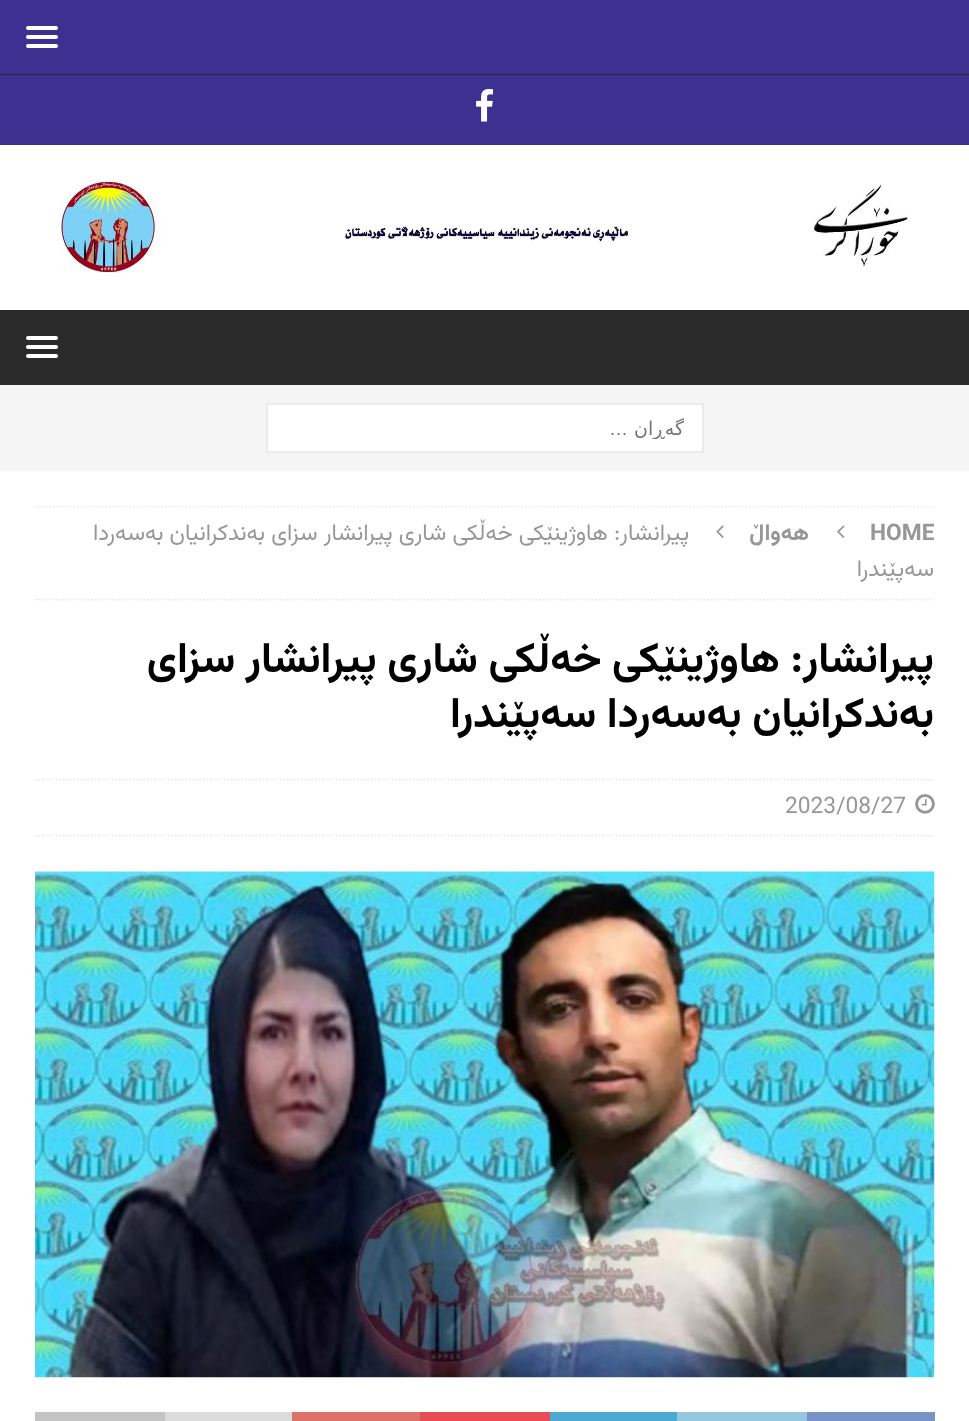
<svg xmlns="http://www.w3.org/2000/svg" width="969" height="1421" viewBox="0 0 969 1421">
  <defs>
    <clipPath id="clip1"><path d="M35 506h900v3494H35z"/></clipPath>
    <clipPath id="clip2"><path d="M306 417h378v22H306z"/></clipPath>
  </defs>
  <rect width="100%" height="100%" fill="#3c3191"/>
  <path d="M0 74h969v1H0z" fill="#2a2a2a"/>
  <rect x="26" y="26" width="32" height="4" rx="2" fill="#fff"/>
  <rect x="26" y="35" width="32" height="4" rx="2" fill="#fff"/>
  <rect x="26" y="44" width="32" height="4" rx="2" fill="#fff"/>
  <image x="476" y="89" width="17" height="33" href="img/1.png"/>
  <path d="M0 145h969v165H0z" fill="#fff"/>
  <image x="60" y="180" width="851" height="93" href="img/2.png"/>
  <path d="M0 310h969v75H0z" fill="#2a2a2a"/>
  <rect x="26" y="336" width="32" height="4" rx="2" fill="#fff"/>
  <rect x="26" y="345" width="32" height="4" rx="2" fill="#fff"/>
  <rect x="26" y="354" width="32" height="4" rx="2" fill="#fff"/>
  <path d="M0 385h969v86H0z" fill="#f5f5f5"/>
  <path d="M267 404h436v48H267z" fill="#fff" stroke="#ebebeb" stroke-width="2"/>
  <path d="M0 471h969v950H0z" fill="#fff"/>
  <g clip-path="url(#clip1)">
    <path d="M35 506.5H934.5" fill="none" stroke="#ebebeb" stroke-width="1.8" stroke-dasharray="1.75 1.75"/>
  </g>
  <path d="M35 599.5H934.5" fill="none" stroke="#ebebeb" stroke-width="1.8" stroke-dasharray="1.75 1.75"/>
  <image x="837" y="525" width="8" height="13" href="img/3.png"/>
  <image x="716" y="525" width="8" height="13" href="img/4.png"/>
  <path d="M35 779.5H934.5" fill="none" stroke="#ebebeb" stroke-width="1.8" stroke-dasharray="1.75 1.75"/>
  <path d="M35 835.5H934.5" fill="none" stroke="#ebebeb" stroke-width="1.8" stroke-dasharray="1.75 1.75"/>
  <image x="915" y="794" width="20" height="20" href="img/5.png"/>
  <image x="35" y="871" width="900" height="507" href="img/6.png"/>
  <path d="M807 1412h128v9H807z" fill="#7893c6"/>
  <path d="M677 1412h130v9H677z" fill="#97c6df"/>
  <path d="M550 1412h127v9H550z" fill="#4da9d2"/>
  <path d="M420 1412h130v9H420z" fill="#e84d56"/>
  <path d="M292 1412h128v9H292z" fill="#dc7268"/>
  <path d="M165 1412h127v9H165z" fill="#dbdbdb"/>
  <path d="M35 1412h130v9H35z" fill="#c4c4c4"/>
  <g clip-path="url(#clip2)">
    <text x="684" y="435" font-family="DejaVu Sans" font-size="19" direction="rtl" fill="#757575">گەڕان</text>
  </g>
  <text x="628" y="435" font-family="Liberation Sans" font-size="19" direction="rtl" fill="#757575">…</text>
  <text x="870" y="540" font-family="Vazirmatn" font-size="22.75" font-weight="bold" fill="#979797">HOME</text>
  <text x="809" y="540" font-family="Vazirmatn" font-size="22.75" font-weight="bold" direction="rtl" fill="#979797">هەواڵ</text>
  <g font-family="Vazirmatn" font-size="22.75" direction="rtl" fill="#979797">
    <text x="689" y="540">پیرانشار: هاوژینێکی خەڵکی شاری پیرانشار سزای بەندکرانیان بەسەردا</text>
    <text x="934" y="576">سەپێندرا</text>
  </g>
  <g font-family="Vazirmatn" font-size="42" font-weight="bold" direction="rtl" fill="#000">
    <text x="934" y="672">پیرانشار: هاوژینێکی خەڵکی شاری پیرانشار سزای</text>
    <text x="934" y="727">بەندکرانیان بەسەردا سەپێندرا</text>
  </g>
  <text x="785" y="813" font-family="Vazirmatn" font-size="22.75" fill="#979797">2023/08/27</text>
</svg>
